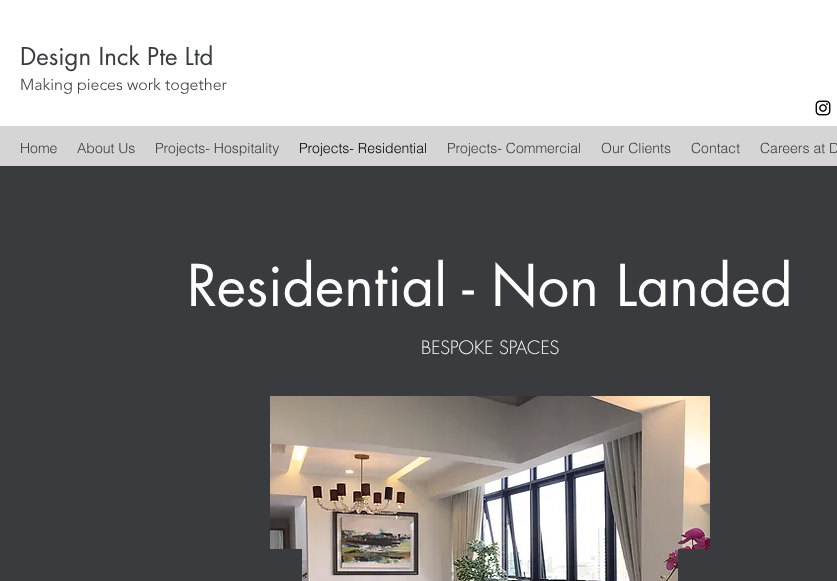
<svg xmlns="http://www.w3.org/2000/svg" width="837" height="581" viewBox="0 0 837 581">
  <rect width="100%" height="100%" fill="#fff"/>
  <image x="815" y="100" width="16" height="16" href="img/1.png"/>
  <path d="M0 126h837v40H0z" fill="#d5d5d5"/>
  <path d="M0 166h837v415H0z" fill="#3a3b3f"/>
  <image x="270" y="396" width="440" height="185" href="img/2.png"/>
  <path d="M270 549h32v32H270z" fill="#3a3b3f"/>
  <path d="M678 549h32v32H678z" fill="#3a3b3f"/>
  <text x="20" y="65" font-family="futura" font-size="24" fill="#3a3b3f">Design Inck Pte Ltd</text>
  <text x="20" y="90" font-family="'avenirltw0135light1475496'" font-size="16" font-weight="300" fill="#3a3b3f">Making pieces work together</text>
  <g font-family="helvetica" font-size="14" font-weight="300" fill="#3a3b3f">
    <text x="20" y="153">Home</text>
    <text x="77" y="153">About Us</text>
    <text x="155" y="153">Projects- Hospitality</text>
  </g>
  <text x="299" y="153" font-family="helvetica" font-size="14" font-weight="300" fill="#000">Projects- Residential</text>
  <g font-family="helvetica" font-size="14" font-weight="300" fill="#3a3b3f">
    <text x="447" y="153">Projects- Commercial</text>
    <text x="601" y="153">Our Clients</text>
    <text x="691" y="153">Contact</text>
    <text x="760" y="153">Careers at D</text>
  </g>
  <text x="187" y="306" font-family="futura" font-size="56" fill="#fff">Residential - Non Landed</text>
  <text x="421" y="354" font-family="futura" font-size="18" font-weight="300" fill="#fff">BESPOKE SPACES</text>
</svg>
